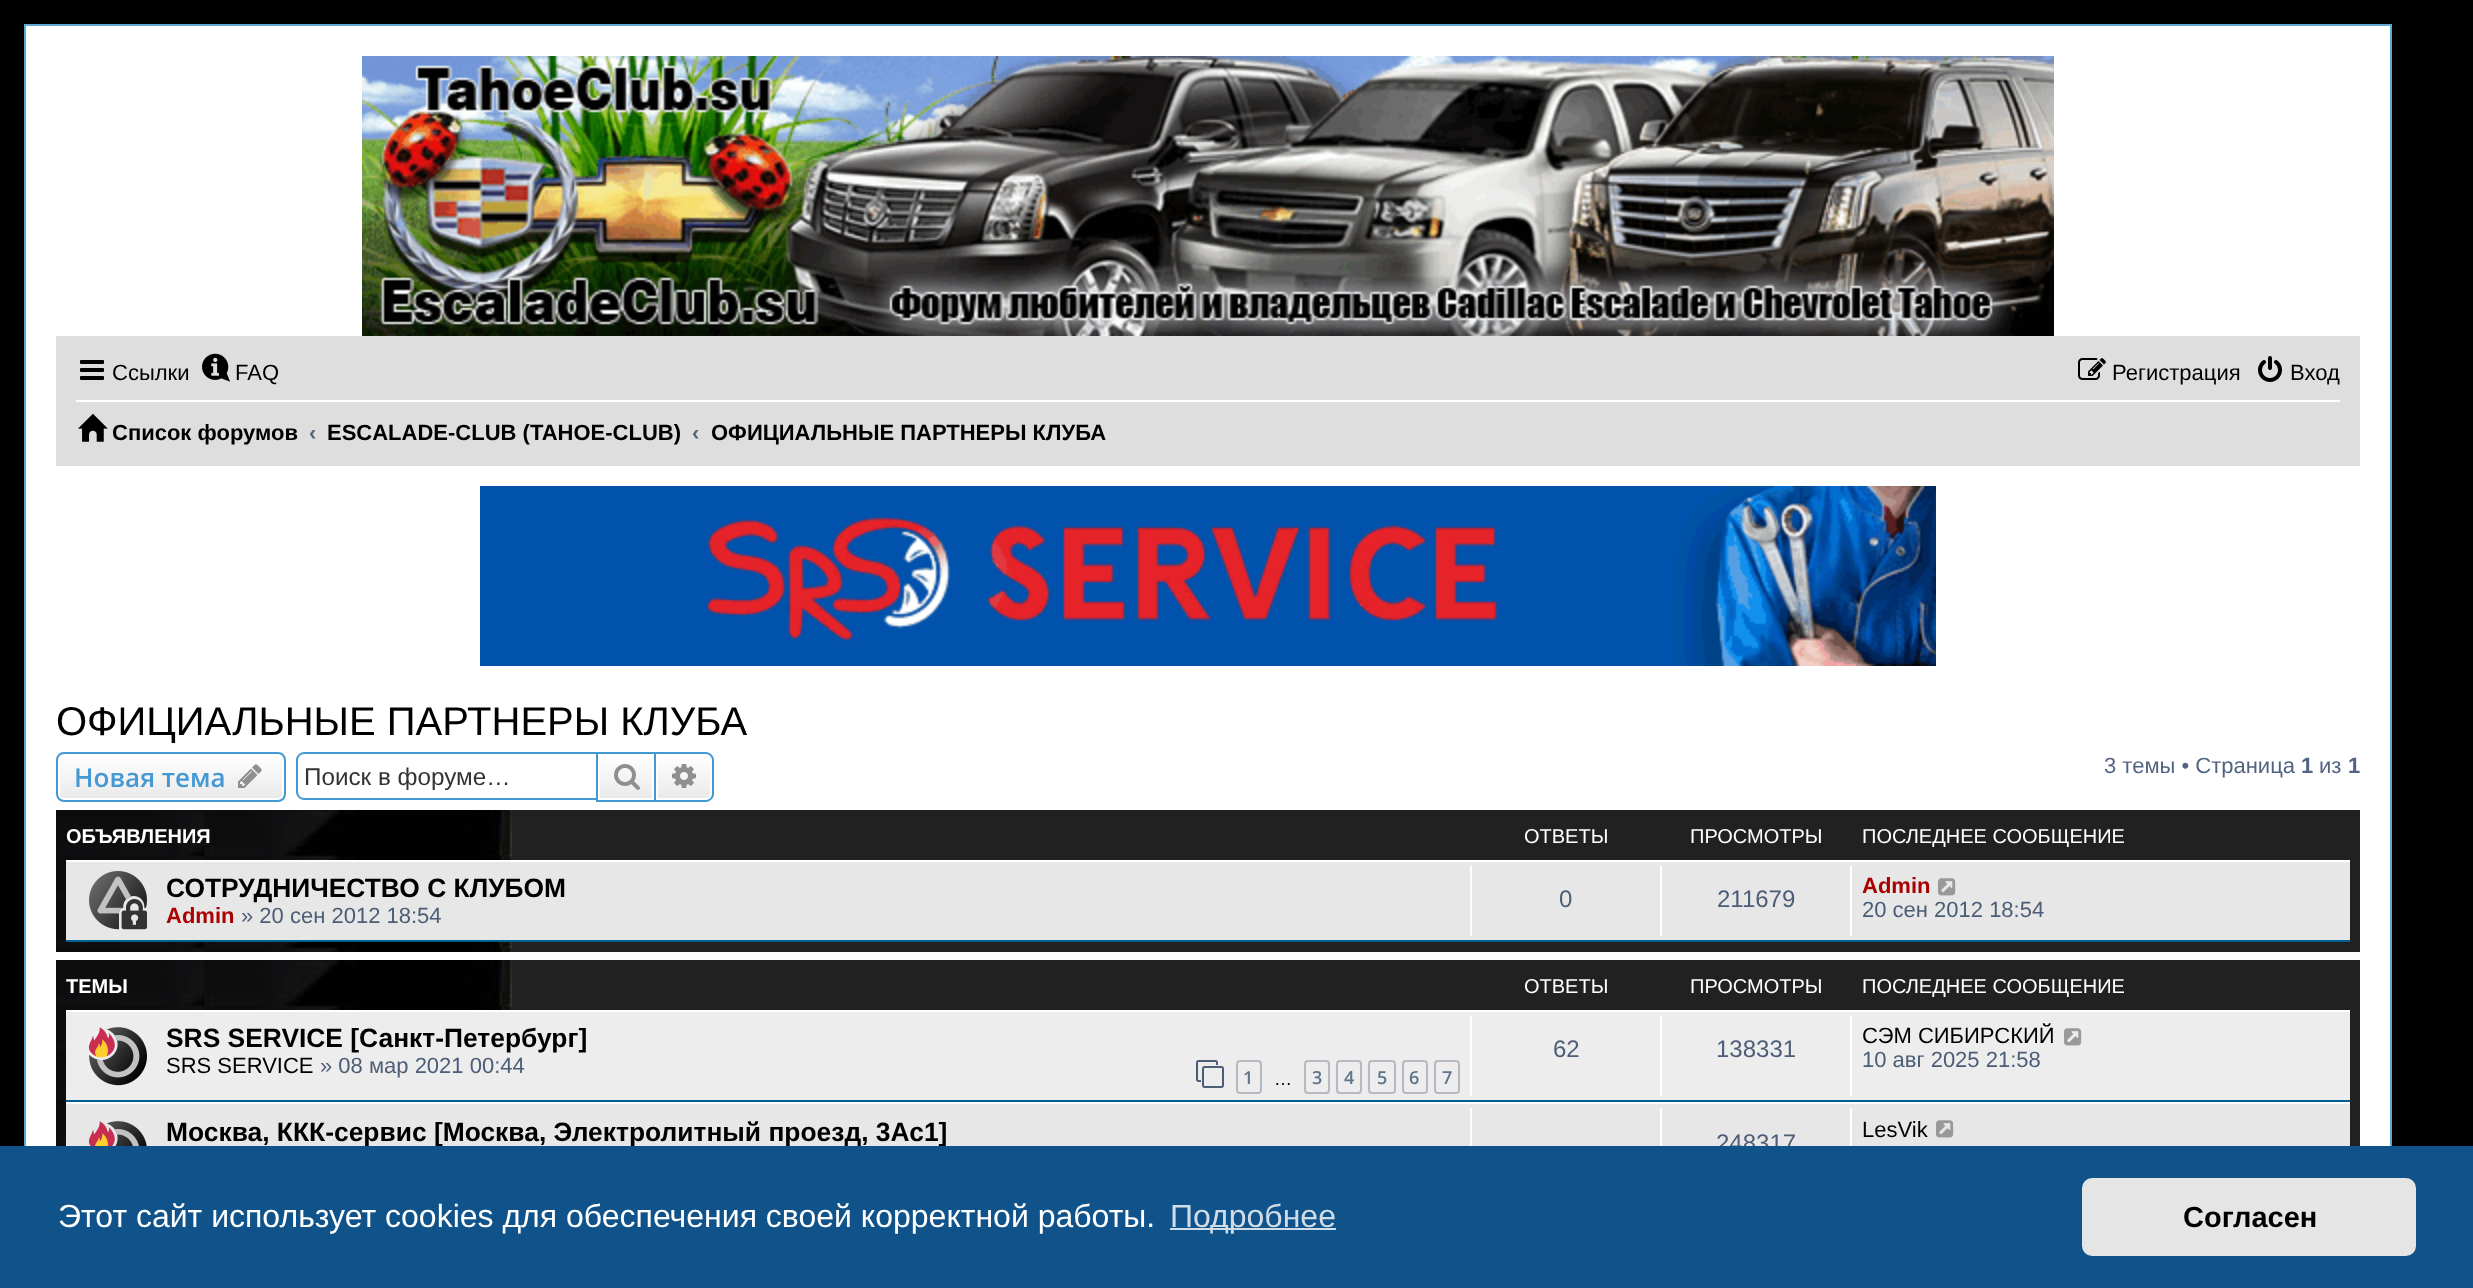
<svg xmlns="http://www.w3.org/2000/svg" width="2473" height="1288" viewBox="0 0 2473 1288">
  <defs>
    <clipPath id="clip1"><rect x="56" y="752" width="230" height="50" rx="8"/></clipPath>
    <linearGradient id="g1" gradientUnits="userSpaceOnUse" x1="171" y1="754" x2="171" y2="800"><stop offset="0" stop-color="#fff"/><stop offset="1" stop-color="#e9e9e9"/></linearGradient>
    <linearGradient id="g2" gradientUnits="userSpaceOnUse" x1="626" y1="754" x2="626" y2="800"><stop offset="0" stop-color="#fff"/><stop offset="1" stop-color="#e9e9e9"/></linearGradient>
    <linearGradient id="g3" gradientUnits="userSpaceOnUse" x1="684" y1="754" x2="684" y2="800"><stop offset="0" stop-color="#fff"/><stop offset="1" stop-color="#e9e9e9"/></linearGradient>
  </defs>
  <rect width="100%" height="100%" fill="#000"/>
  <path d="M26 26h2364v1120H26z" fill="#fff"/>
  <path d="M25 25h2366v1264H25z" fill="none" stroke="#5fa8d3" stroke-width="2"/>
  <image x="362" y="56" width="1692" height="280" href="img/1.png"/>
  <path d="M56 336h2304v130H56z" fill="#dedede"/>
  <image x="80" y="360" width="24" height="20" href="img/2.png"/>
  <image x="202" y="353" width="28" height="29" href="img/3.png"/>
  <image x="2078" y="358" width="28" height="22" href="img/4.png"/>
  <image x="2258" y="356" width="24" height="26" href="img/5.png"/>
  <path d="M76 400h2264v2H76z" fill="#fff"/>
  <image x="78" y="413" width="30" height="29" href="img/6.png"/>
  <image x="480" y="486" width="1456" height="180" href="img/7.png"/>
  <g clip-path="url(#clip1)">
    <path d="M56 754h230v46H56z" fill="url(#g1)"/>
  </g>
  <rect x="59" y="755" width="224" height="44" rx="5" fill="none" stroke="#fff" stroke-width="2"/>
  <rect x="57" y="753" width="228" height="48" rx="7" fill="none" stroke="#4498d4" stroke-width="2"/>
  <image x="238" y="764" width="24" height="24" href="img/8.png"/>
  <path d="M304 752H596V800H304C300 800 296 796 296 792V760C296 756 300 752 304 752ZM304 754H596V798H304C301 798 298 795 298 792V760C298 757 301 754 304 754Z" fill="#4498d4" fill-rule="evenodd"/>
  <path d="M600 759h52v39H600z" fill="url(#g2)"/>
  <path d="M597 753h58v48H597z" fill="none" stroke="#4498d4" stroke-width="2"/>
  <image x="614" y="764" width="26" height="26" href="img/9.png"/>
  <path d="M657 755H706C709 755 711 757 711 760V794C711 797 709 799 706 799H657Z" fill="url(#g3)" stroke="#fff" stroke-width="2"/>
  <path d="M656 752H706C710 752 714 756 714 760V794C714 798 710 802 706 802H656ZM656 754H706C709 754 712 757 712 760V794C712 797 709 800 706 800H656Z" fill="#4498d4" fill-rule="evenodd"/>
  <image x="672" y="764" width="24" height="24" href="img/10.png"/>
  <path d="M512 810h1848v142H512z" fill="#212121"/>
  <image x="56" y="810" width="456" height="142" href="img/11.png"/>
  <path d="M66 862h2284v78H66z" fill="#e7e7e7"/>
  <path d="M66 860h2284v2H66z" fill="#fff"/>
  <path d="M66 940h2284v2H66z" fill="#00608f"/>
  <image x="89" y="871" width="58" height="59" href="img/12.png"/>
  <path d="M1470 866h2v70H1470z" fill="#fff"/>
  <path d="M1660 866h2v70H1660z" fill="#fff"/>
  <path d="M1850 866h2v70H1850z" fill="#fff"/>
  <image x="1938" y="878" width="18" height="18" href="img/13.png"/>
  <path d="M512 960h1848v186H512z" fill="#212121"/>
  <image x="56" y="960" width="456" height="186" href="img/14.png"/>
  <path d="M66 1012h2284v88H66z" fill="#ededed"/>
  <path d="M66 1010h2284v2H66z" fill="#fff"/>
  <path d="M66 1100h2284v2H66z" fill="#00608f"/>
  <image x="88" y="1027" width="59" height="59" href="img/15.png"/>
  <image x="1196" y="1060" width="28" height="28" href="img/16.png"/>
  <rect x="1237" y="1061" width="24" height="32" rx="3" fill="none" stroke="#b4bac0" stroke-width="2"/>
  <rect x="1305" y="1061" width="24" height="32" rx="3" fill="none" stroke="#b4bac0" stroke-width="2"/>
  <rect x="1337" y="1061" width="24" height="32" rx="3" fill="none" stroke="#b4bac0" stroke-width="2"/>
  <rect x="1369" y="1061" width="26" height="32" rx="3" fill="none" stroke="#b4bac0" stroke-width="2"/>
  <rect x="1403" y="1061" width="24" height="32" rx="3" fill="none" stroke="#b4bac0" stroke-width="2"/>
  <rect x="1435" y="1061" width="24" height="32" rx="3" fill="none" stroke="#b4bac0" stroke-width="2"/>
  <path d="M1470 1016h2v80H1470z" fill="#fff"/>
  <path d="M1660 1016h2v80H1660z" fill="#fff"/>
  <path d="M1850 1016h2v80H1850z" fill="#fff"/>
  <image x="2064" y="1028" width="18" height="18" href="img/17.png"/>
  <path d="M66 1104h2284v42H66z" fill="#e7e7e7"/>
  <path d="M66 1102h2284v2H66z" fill="#fff"/>
  <image x="88" y="1121" width="59" height="25" href="img/18.png"/>
  <path d="M1470 1108h2v38H1470z" fill="#fff"/>
  <path d="M1850 1108h2v38H1850z" fill="#fff"/>
  <image x="1936" y="1120" width="18" height="18" href="img/13.png"/>
  <path d="M1660 1108h2v38H1660z" fill="#fff"/>
  <g font-family="Liberation Sans" font-size="22" fill="#000">
    <text x="112" y="380">Ссылки</text>
    <text x="235" y="380">FAQ</text>
    <text x="2112" y="380">Регистрация</text>
    <text x="2290" y="380">Вход</text>
  </g>
  <text x="112" y="440" font-family="Liberation Sans" font-size="22" font-weight="bold" fill="#000">Список форумов</text>
  <text x="309" y="440" font-family="Liberation Sans" font-size="22" font-weight="bold" fill="#536482">‹</text>
  <text x="327" y="440" font-family="Liberation Sans" font-size="22" font-weight="bold" fill="#000">ESCALADE-CLUB (TAHOE-CLUB)</text>
  <text x="692" y="440" font-family="Liberation Sans" font-size="22" font-weight="bold" fill="#536482">‹</text>
  <text x="711" y="440" font-family="Liberation Sans" font-size="22" font-weight="bold" fill="#000">ОФИЦИАЛЬНЫЕ ПАРТНЕРЫ КЛУБА</text>
  <text x="56" y="735" font-family="Liberation Sans" font-size="40" fill="#000">ОФИЦИАЛЬНЫЕ ПАРТНЕРЫ КЛУБА</text>
  <text x="74" y="787" font-family="Open Sans" font-size="26" font-weight="600" fill="#4498d4">Новая тема</text>
  <text x="304" y="785" font-family="Liberation Sans" font-size="24.25" fill="#333">Поиск в форуме…</text>
  <text x="2104" y="773" font-family="Liberation Sans" font-size="22" fill="#536482">3 темы • Страница</text>
  <text x="2301" y="773" font-family="Liberation Sans" font-size="22" font-weight="bold" fill="#536482">1</text>
  <text x="2319" y="773" font-family="Liberation Sans" font-size="22" fill="#536482">из</text>
  <text x="2348" y="773" font-family="Liberation Sans" font-size="22" font-weight="bold" fill="#536482">1</text>
  <text x="66" y="843" font-family="Liberation Sans" font-size="20" font-weight="bold" fill="#fff">ОБЪЯВЛЕНИЯ</text>
  <g font-family="Liberation Sans" font-size="20" fill="#fff">
    <text x="1524" y="843">ОТВЕТЫ</text>
    <text x="1690" y="843">ПРОСМОТРЫ</text>
    <text x="1862" y="843">ПОСЛЕДНЕЕ СООБЩЕНИЕ</text>
  </g>
  <text x="166" y="897" font-family="Liberation Sans" font-size="26.4" font-weight="bold" fill="#000">СОТРУДНИЧЕСТВО С КЛУБОМ</text>
  <text x="166" y="923" font-family="Liberation Sans" font-size="22" font-weight="bold" fill="#a00">Admin</text>
  <text x="241" y="923" font-family="Liberation Sans" font-size="22" fill="#4c5d77">» 20 сен 2012 18:54</text>
  <g font-family="Liberation Sans" font-size="24" fill="#4c5d77">
    <text x="1559" y="907">0</text>
    <text x="1717" y="907">211679</text>
  </g>
  <text x="1862" y="893" font-family="Liberation Sans" font-size="22" font-weight="bold" fill="#a00">Admin</text>
  <text x="1862" y="917" font-family="Liberation Sans" font-size="22" fill="#4c5d77">20 сен 2012 18:54</text>
  <text x="66" y="993" font-family="Liberation Sans" font-size="20" font-weight="bold" fill="#fff">ТЕМЫ</text>
  <g font-family="Liberation Sans" font-size="20" fill="#fff">
    <text x="1524" y="993">ОТВЕТЫ</text>
    <text x="1690" y="993">ПРОСМОТРЫ</text>
    <text x="1862" y="993">ПОСЛЕДНЕЕ СООБЩЕНИЕ</text>
  </g>
  <text x="166" y="1047" font-family="Liberation Sans" font-size="26.4" font-weight="bold" fill="#000">SRS SERVICE [Санкт-Петербург]</text>
  <text x="166" y="1073" font-family="Liberation Sans" font-size="22" fill="#000">SRS SERVICE</text>
  <text x="320" y="1073" font-family="Liberation Sans" font-size="22" fill="#4c5d77">» 08 мар 2021 00:44</text>
  <text x="1243" y="1084" font-family="Open Sans" font-size="18" font-weight="600" fill="#5c758c">1</text>
  <text x="1274" y="1085" font-family="Liberation Sans" font-size="18" fill="#000">…</text>
  <g font-family="Open Sans" font-size="18" font-weight="600" fill="#5c758c">
    <text x="1312" y="1084">3</text>
    <text x="1344" y="1084">4</text>
    <text x="1377" y="1084">5</text>
    <text x="1409" y="1084">6</text>
    <text x="1442" y="1084">7</text>
  </g>
  <g font-family="Liberation Sans" font-size="24" fill="#4c5d77">
    <text x="1553" y="1057">62</text>
    <text x="1716" y="1057">138331</text>
  </g>
  <text x="1862" y="1043" font-family="Liberation Sans" font-size="22" fill="#000">СЭМ СИБИРСКИЙ</text>
  <text x="1862" y="1067" font-family="Liberation Sans" font-size="22" fill="#4c5d77">10 авг 2025 21:58</text>
  <text x="166" y="1141" font-family="Liberation Sans" font-size="26.4" font-weight="bold" fill="#000">Москва, ККК-сервис [Москва, Электролитный проезд, 3Ас1]</text>
  <text x="1862" y="1137" font-family="Liberation Sans" font-size="22" fill="#000">LesVik</text>
  <text x="1716" y="1151" font-family="Liberation Sans" font-size="24" fill="#4c5d77">248317</text>
  <path d="M0 1146h2473v142H0z" fill="#0f538a"/>
  <text x="58" y="1227" font-family="Liberation Sans" font-size="32" fill="#fff">Этот сайт использует cookies для обеспечения своей корректной работы.</text>
  <path d="M1170 1228h166v2H1170z" fill="#cfdde8"/>
  <text x="1170" y="1227" font-family="Liberation Sans" font-size="32" fill="#cfdde8">Подробнее</text>
  <rect x="2082" y="1178" width="334" height="78" rx="10" fill="#e5e5e5"/>
  <text x="2183" y="1227" font-family="Liberation Sans" font-size="29" font-weight="bold" fill="#000">Согласен</text>
</svg>
